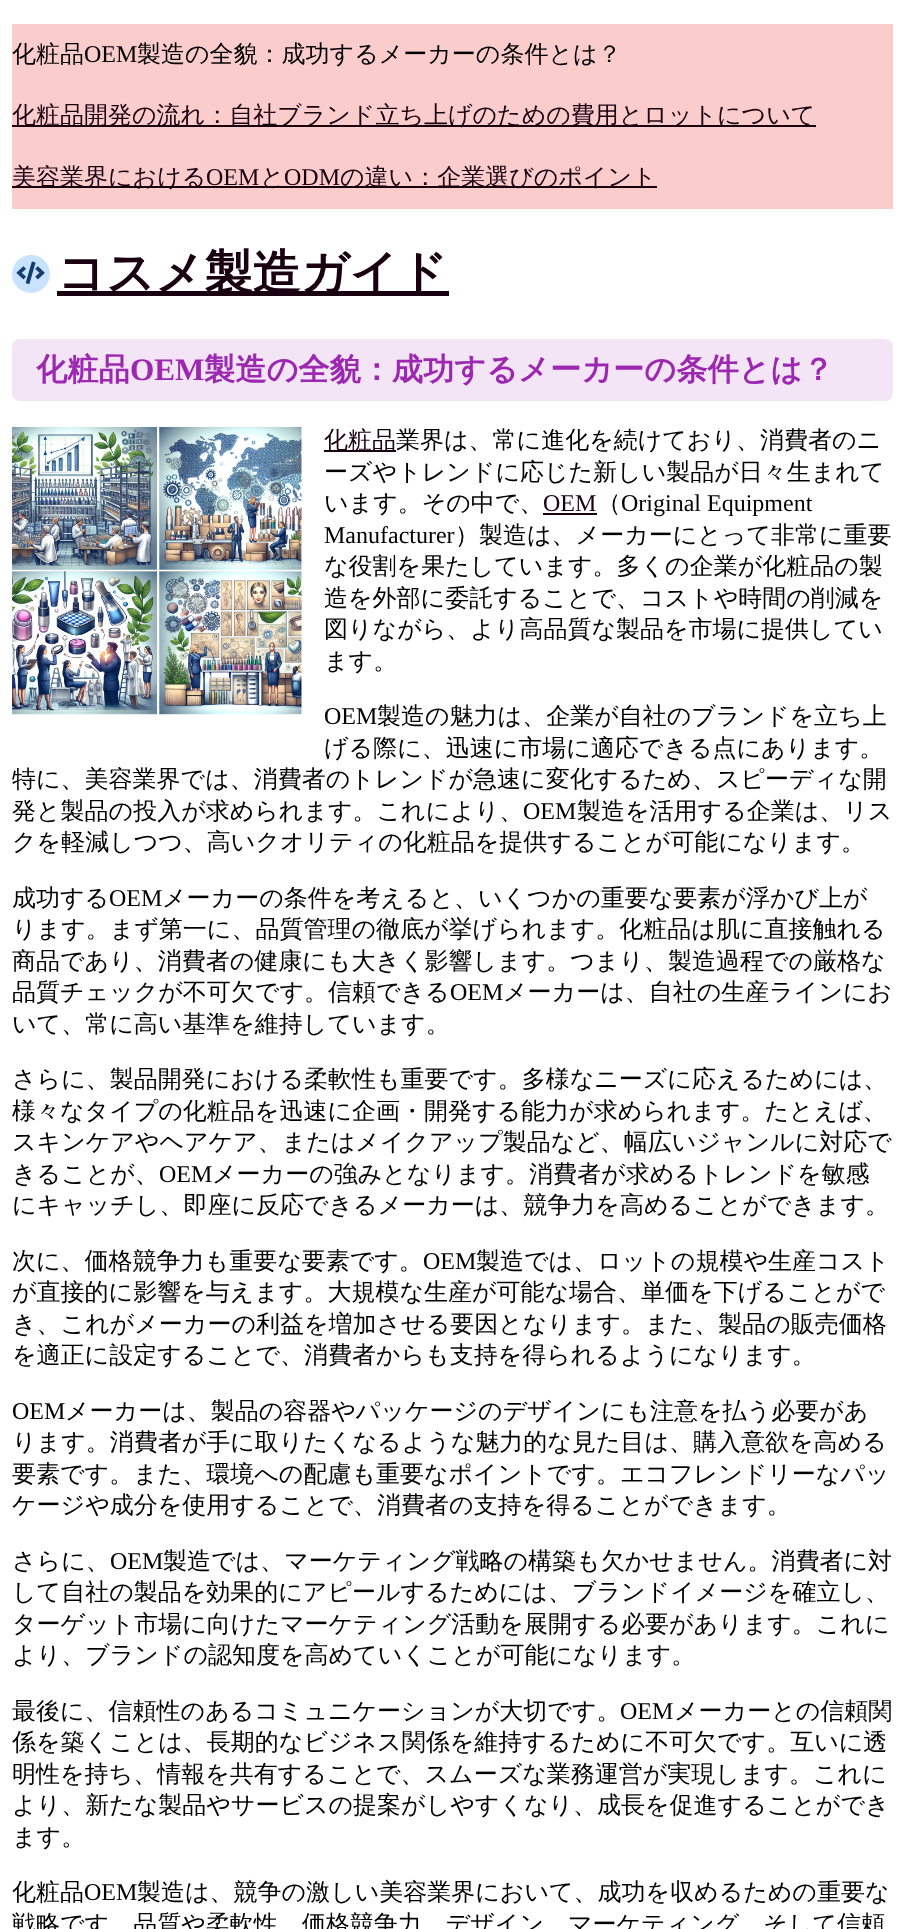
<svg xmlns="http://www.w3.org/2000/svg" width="904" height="1929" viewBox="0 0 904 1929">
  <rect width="100%" height="100%" fill="#fff"/>
  <path d="M12 24h881v185H12z" fill="#fbcccc"/>
  <path d="M12 125h804v2H12z" fill="#1a0111"/>
  <path d="M12 186h645v2H12z" fill="#1a0111"/>
  <circle cx="31" cy="274" r="19" fill="#c9e2ff"/>
  <image x="16" y="261" width="29" height="23" href="img/1.png"/>
  <path d="M57 291h392v5H57z" fill="#1a0111"/>
  <rect x="12" y="339" width="881" height="62" rx="8" fill="#f3e5f5"/>
  <image x="12" y="426" width="290" height="289" href="img/2.png"/>
  <path d="M324 450h72v2H324z" fill="#1a0111"/>
  <path d="M543 513h54v2H543z" fill="#1a0111"/>
  <text x="12" y="62" font-family="WenQuanYi Zen Hei" font-size="24" font-weight="500" fill="#000">化粧品</text>
  <text x="84" y="62" font-family="Liberation Serif" font-size="24" fill="#000">OEM</text>
  <text x="137" y="62" font-family="WenQuanYi Zen Hei" font-size="24" font-weight="500" fill="#000">製造の全貌：成功するメーカーの条件とは？</text>
  <g font-family="WenQuanYi Zen Hei" font-size="24" font-weight="500" fill="#1a0111">
    <text x="12" y="123">化粧品開発の流れ：自社ブランド立ち上げのための費用とロットについて</text>
    <text x="12" y="185">美容業界における</text>
  </g>
  <text x="206" y="185" font-family="Liberation Serif" font-size="24" fill="#1a0111">OEM</text>
  <text x="260" y="185" font-family="WenQuanYi Zen Hei" font-size="24" font-weight="500" fill="#1a0111">と</text>
  <text x="284" y="185" font-family="Liberation Serif" font-size="24" fill="#1a0111">ODM</text>
  <text x="340" y="185" font-family="WenQuanYi Zen Hei" font-size="24" font-weight="500" fill="#1a0111">の違い：企業選びのポイント</text>
  <text x="57" y="289" font-family="WenQuanYi Zen Hei" font-size="48" font-weight="bold" fill="#1a0111">コスメ製造ガイド</text>
  <text x="36" y="380" font-family="WenQuanYi Zen Hei" font-size="31.2" font-weight="bold" fill="#9c27b0">化粧品</text>
  <text x="130" y="380" font-family="Liberation Serif" font-size="31.2" font-weight="bold" fill="#9c27b0">OEM</text>
  <text x="204" y="380" font-family="WenQuanYi Zen Hei" font-size="31.2" font-weight="bold" fill="#9c27b0">製造の全貌：成功するメーカーの条件とは？</text>
  <text x="324" y="448" font-family="WenQuanYi Zen Hei" font-size="24" font-weight="500" fill="#1a0111">化粧品</text>
  <g font-family="WenQuanYi Zen Hei" font-size="24" font-weight="500" fill="#000">
    <text x="396" y="448">業界は、常に進化を続けており、消費者のニ</text>
    <text x="324" y="480">ーズやトレンドに応じた新しい製品が日々生まれて</text>
    <text x="324" y="511">います。その中で、</text>
  </g>
  <text x="543" y="511" font-family="Liberation Serif" font-size="24" fill="#1a0111">OEM</text>
  <text x="597" y="511" font-family="WenQuanYi Zen Hei" font-size="24" font-weight="500" fill="#000">（</text>
  <g font-family="Liberation Serif" font-size="24" fill="#000">
    <text x="621" y="511">Original Equipment</text>
    <text x="324" y="543">Manufacturer</text>
  </g>
  <g font-family="WenQuanYi Zen Hei" font-size="24" font-weight="500" fill="#000">
    <text x="455" y="543">）製造は、メーカーにとって非常に重要</text>
    <text x="324" y="574">な役割を果たしています。多くの企業が化粧品の製</text>
    <text x="324" y="606">造を外部に委託することで、コストや時間の削減を</text>
    <text x="324" y="637">図りながら、より高品質な製品を市場に提供してい</text>
    <text x="324" y="669">ます。</text>
  </g>
  <text x="324" y="724" font-family="Liberation Serif" font-size="24" fill="#000">OEM</text>
  <g font-family="WenQuanYi Zen Hei" font-size="24" font-weight="500" fill="#000">
    <text x="377" y="724">製造の魅力は、企業が自社のブランドを立ち上</text>
    <text x="324" y="756">げる際に、迅速に市場に適応できる点にあります。</text>
    <text x="12" y="787">特に、美容業界では、消費者のトレンドが急速に変化するため、スピーディな開</text>
    <text x="12" y="819">発と製品の投入が求められます。これにより、</text>
  </g>
  <text x="523" y="819" font-family="Liberation Serif" font-size="24" fill="#000">OEM</text>
  <g font-family="WenQuanYi Zen Hei" font-size="24" font-weight="500" fill="#000">
    <text x="577" y="819">製造を活用する企業は、リス</text>
    <text x="12" y="850">クを軽減しつつ、高いクオリティの化粧品を提供することが可能になります。</text>
    <text x="12" y="906">成功する</text>
  </g>
  <text x="109" y="906" font-family="Liberation Serif" font-size="24" fill="#000">OEM</text>
  <g font-family="WenQuanYi Zen Hei" font-size="24" font-weight="500" fill="#000">
    <text x="162" y="906">メーカーの条件を考えると、いくつかの重要な要素が浮かび上が</text>
    <text x="12" y="937">ります。まず第一に、品質管理の徹底が挙げられます。化粧品は肌に直接触れる</text>
    <text x="12" y="969">商品であり、消費者の健康にも大きく影響します。つまり、製造過程での厳格な</text>
    <text x="12" y="1000">品質チェックが不可欠です。信頼できる</text>
  </g>
  <text x="450" y="1000" font-family="Liberation Serif" font-size="24" fill="#000">OEM</text>
  <g font-family="WenQuanYi Zen Hei" font-size="24" font-weight="500" fill="#000">
    <text x="503" y="1000">メーカーは、自社の生産ラインにお</text>
    <text x="12" y="1032">いて、常に高い基準を維持しています。</text>
    <text x="12" y="1087">さらに、製品開発における柔軟性も重要です。多様なニーズに応えるためには、</text>
    <text x="12" y="1119">様々なタイプの化粧品を迅速に企画・開発する能力が求められます。たとえば、</text>
    <text x="12" y="1150">スキンケアやヘアケア、またはメイクアップ製品など、幅広いジャンルに対応で</text>
    <text x="12" y="1182">きることが、</text>
  </g>
  <text x="159" y="1182" font-family="Liberation Serif" font-size="24" fill="#000">OEM</text>
  <g font-family="WenQuanYi Zen Hei" font-size="24" font-weight="500" fill="#000">
    <text x="212" y="1182">メーカーの強みとなります。消費者が求めるトレンドを敏感</text>
    <text x="12" y="1213">にキャッチし、即座に反応できるメーカーは、競争力を高めることができます。</text>
    <text x="12" y="1269">次に、価格競争力も重要な要素です。</text>
  </g>
  <text x="423" y="1269" font-family="Liberation Serif" font-size="24" fill="#000">OEM</text>
  <g font-family="WenQuanYi Zen Hei" font-size="24" font-weight="500" fill="#000">
    <text x="476" y="1269">製造では、ロットの規模や生産コスト</text>
    <text x="12" y="1300">が直接的に影響を与えます。大規模な生産が可能な場合、単価を下げることがで</text>
    <text x="12" y="1332">き、これがメーカーの利益を増加させる要因となります。また、製品の販売価格</text>
    <text x="12" y="1363">を適正に設定することで、消費者からも支持を得られるようになります。</text>
  </g>
  <text x="12" y="1419" font-family="Liberation Serif" font-size="24" fill="#000">OEM</text>
  <g font-family="WenQuanYi Zen Hei" font-size="24" font-weight="500" fill="#000">
    <text x="65" y="1419">メーカーは、製品の容器やパッケージのデザインにも注意を払う必要があ</text>
    <text x="12" y="1450">ります。消費者が手に取りたくなるような魅力的な見た目は、購入意欲を高める</text>
    <text x="12" y="1482">要素です。また、環境への配慮も重要なポイントです。エコフレンドリーなパッ</text>
    <text x="12" y="1513">ケージや成分を使用することで、消費者の支持を得ることができます。</text>
    <text x="12" y="1569">さらに、</text>
  </g>
  <text x="110" y="1569" font-family="Liberation Serif" font-size="24" fill="#000">OEM</text>
  <g font-family="WenQuanYi Zen Hei" font-size="24" font-weight="500" fill="#000">
    <text x="163" y="1569">製造では、マーケティング戦略の構築も欠かせません。消費者に対</text>
    <text x="12" y="1600">して自社の製品を効果的にアピールするためには、ブランドイメージを確立し、</text>
    <text x="12" y="1632">ターゲット市場に向けたマーケティング活動を展開する必要があります。これに</text>
    <text x="12" y="1663">より、ブランドの認知度を高めていくことが可能になります。</text>
    <text x="12" y="1719">最後に、信頼性のあるコミュニケーションが大切です。</text>
  </g>
  <text x="620" y="1719" font-family="Liberation Serif" font-size="24" fill="#000">OEM</text>
  <g font-family="WenQuanYi Zen Hei" font-size="24" font-weight="500" fill="#000">
    <text x="674" y="1719">メーカーとの信頼関</text>
    <text x="12" y="1750">係を築くことは、長期的なビジネス関係を維持するために不可欠です。互いに透</text>
    <text x="12" y="1782">明性を持ち、情報を共有することで、スムーズな業務運営が実現します。これに</text>
    <text x="12" y="1813">より、新たな製品やサービスの提案がしやすくなり、成長を促進することができ</text>
    <text x="12" y="1845">ます。</text>
    <text x="12" y="1900">化粧品</text>
  </g>
  <text x="84" y="1900" font-family="Liberation Serif" font-size="24" fill="#000">OEM</text>
  <g font-family="WenQuanYi Zen Hei" font-size="24" font-weight="500" fill="#000">
    <text x="137" y="1900">製造は、競争の激しい美容業界において、成功を収めるための重要な</text>
    <text x="12" y="1932">戦略です。品質や柔軟性、価格競争力、デザイン、マーケティング、そして信頼</text>
  </g>
</svg>
